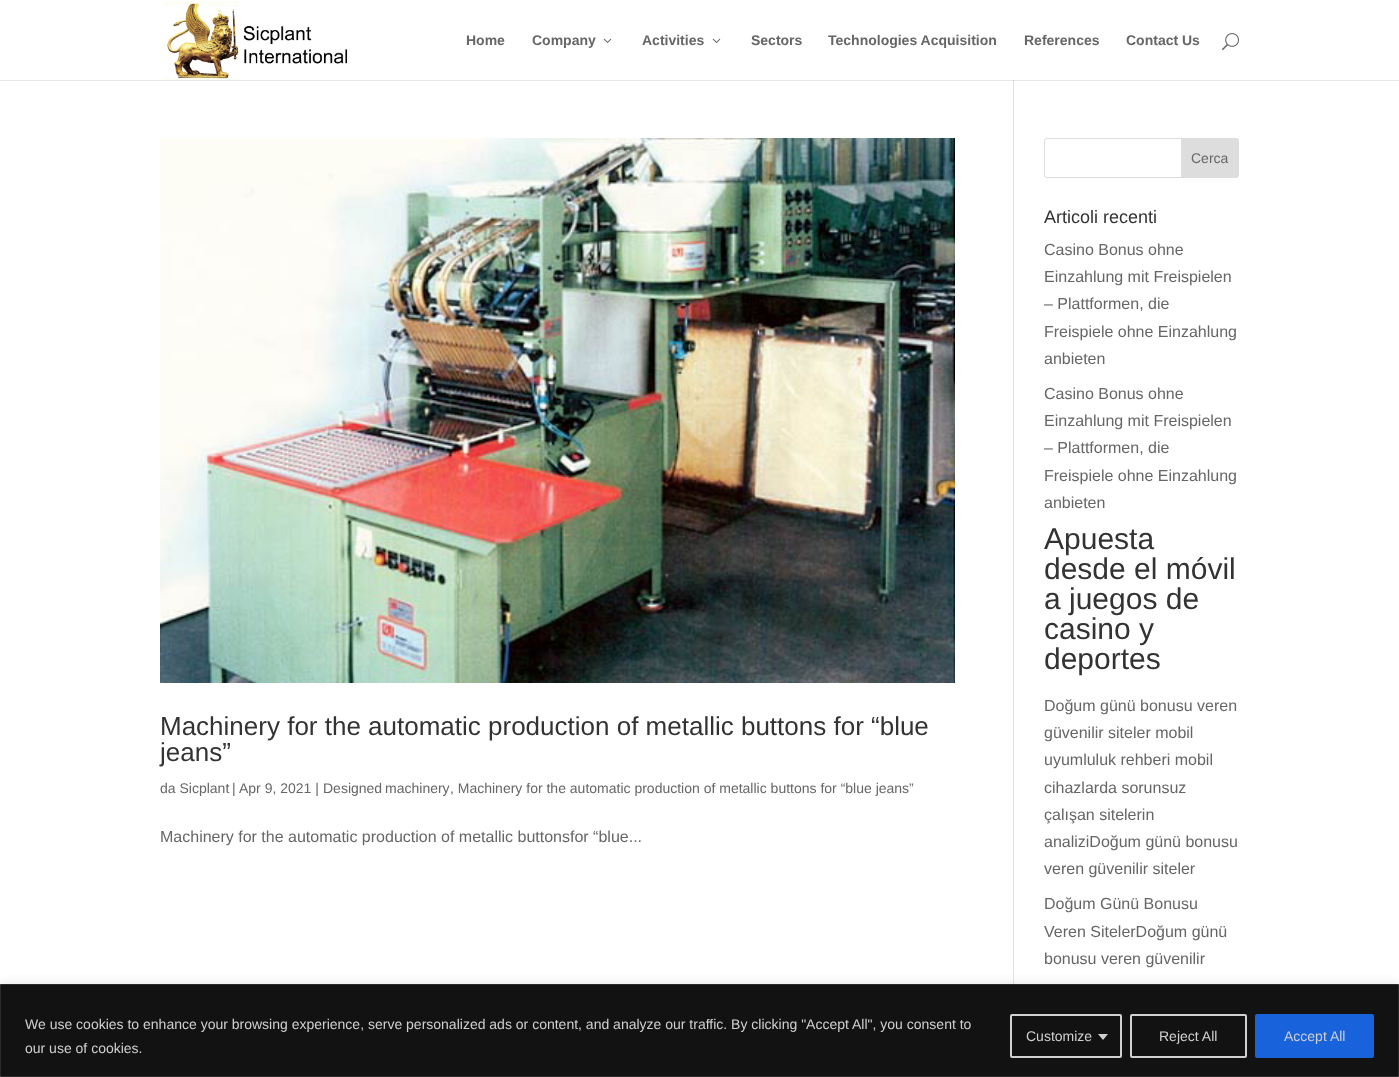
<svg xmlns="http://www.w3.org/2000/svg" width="1399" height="1077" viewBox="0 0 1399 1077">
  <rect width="100%" height="100%" fill="#fff"/>
  <image x="164" y="1" width="184" height="79" href="img/1.png"/>
  <image x="603" y="38" width="9" height="5" href="img/2.png"/>
  <image x="712" y="38" width="9" height="5" href="img/2.png"/>
  <image x="1222" y="33" width="17" height="18" href="img/3.png"/>
  <path d="M0 80h1399v1H0z" fill="#e6e6e6"/>
  <path d="M1013 80h1v904H1013z" fill="#e2e2e2"/>
  <path d="M1013 80h1v1H1013z" fill="#cbcbcb"/>
  <image x="160" y="138" width="795" height="545" href="img/4.png"/>
  <rect x="1044.5" y="138.5" width="194" height="39" rx="2.5" fill="none" stroke="#ddd"/>
  <path d="M1181.5 138.5H1236C1237.5 138.5 1238.5 139.5 1238.5 141V175C1238.5 176.5 1237.5 177.5 1236 177.5H1181.5Z" fill="#ddd" stroke="#ddd"/>
  <path d="M0 983h1399v93H0z" fill="#acabab4d" filter="blur(5px)"/>
  <path d="M0.5 984.5h1398v92H0.5z" fill="#121212" stroke="#2a2a2a"/>
  <rect x="1011" y="1015" width="110" height="42" rx="1" fill="none" stroke="#d0d0d0" stroke-width="2"/>
  <path d="M1098 1034H1108L1103 1040Z" fill="#d0d0d0"/>
  <rect x="1131" y="1015" width="115" height="42" rx="1" fill="none" stroke="#d0d0d0" stroke-width="2"/>
  <rect x="1256" y="1015" width="117" height="42" rx="1" fill="#1863dc" stroke="#1863dc" stroke-width="2"/>
  <g font-family="Liberation Sans" font-size="14" font-weight="bold" fill="#666">
    <text x="466" y="45">Home</text>
    <text x="532" y="45">Company</text>
    <text x="642" y="45">Activities</text>
    <text x="751" y="45">Sectors</text>
    <text x="828" y="45">Technologies Acquisition</text>
    <text x="1024" y="45">References</text>
    <text x="1126" y="45">Contact Us</text>
  </g>
  <g font-family="Liberation Sans" font-size="26" fill="#333">
    <text x="160" y="735">Machinery for the automatic production of metallic buttons for “blue</text>
    <text x="160" y="761">jeans”</text>
  </g>
  <g font-family="Liberation Sans" font-size="14" fill="#666">
    <text x="160" y="793">da Sicplant</text>
    <text x="232" y="793">|</text>
    <text x="239" y="793">Apr 9, 2021 |</text>
    <text x="323" y="793" word-spacing="-1">Designed machinery</text>
    <text x="450" y="793">, Machinery for the automatic production of metallic buttons for “blue jeans”</text>
  </g>
  <text x="160" y="842" font-family="Liberation Sans" font-size="16" fill="#666">Machinery for the automatic production of metallic buttonsfor “blue...</text>
  <text x="1191" y="163" font-family="Liberation Sans" font-size="14" fill="#666">Cerca</text>
  <text x="1044" y="223" font-family="Liberation Sans" font-size="18" fill="#333">Articoli recenti</text>
  <g font-family="Liberation Sans" font-size="16" fill="#666">
    <text x="1044" y="255">Casino Bonus ohne</text>
    <text x="1044" y="282">Einzahlung mit Freispielen</text>
    <text x="1044" y="309">– Plattformen, die</text>
    <text x="1044" y="337">Freispiele ohne Einzahlung</text>
    <text x="1044" y="364">anbieten</text>
    <text x="1044" y="399">Casino Bonus ohne</text>
    <text x="1044" y="426">Einzahlung mit Freispielen</text>
    <text x="1044" y="453">– Plattformen, die</text>
    <text x="1044" y="481">Freispiele ohne Einzahlung</text>
    <text x="1044" y="508">anbieten</text>
  </g>
  <g font-family="Liberation Sans" font-size="30" fill="#333">
    <text x="1044" y="549">Apuesta</text>
    <text x="1044" y="579">desde el móvil</text>
    <text x="1044" y="609">a juegos de</text>
    <text x="1044" y="639">casino y</text>
    <text x="1044" y="669">deportes</text>
  </g>
  <g font-family="Liberation Sans" font-size="16" fill="#666">
    <text x="1044" y="711">Doğum günü bonusu veren</text>
    <text x="1044" y="738">güvenilir siteler mobil</text>
    <text x="1044" y="765">uyumluluk rehberi mobil</text>
    <text x="1044" y="793">cihazlarda sorunsuz</text>
    <text x="1044" y="820">çalışan sitelerin</text>
    <text x="1044" y="847">analiziDoğum günü bonusu</text>
    <text x="1044" y="874">veren güvenilir siteler</text>
    <text x="1044" y="909">Doğum Günü Bonusu</text>
    <text x="1044" y="937">Veren SitelerDoğum günü</text>
    <text x="1044" y="964">bonusu veren güvenilir</text>
  </g>
  <g font-family="Liberation Sans" font-size="14" fill="#d0d0d0">
    <text x="25" y="1029">We use cookies to enhance your browsing experience, serve personalized ads or content, and analyze our traffic. By clicking "Accept All", you consent to</text>
    <text x="25" y="1053">our use of cookies.</text>
    <text x="1026" y="1041">Customize</text>
    <text x="1159" y="1041">Reject All</text>
    <text x="1284" y="1041">Accept All</text>
  </g>
</svg>
